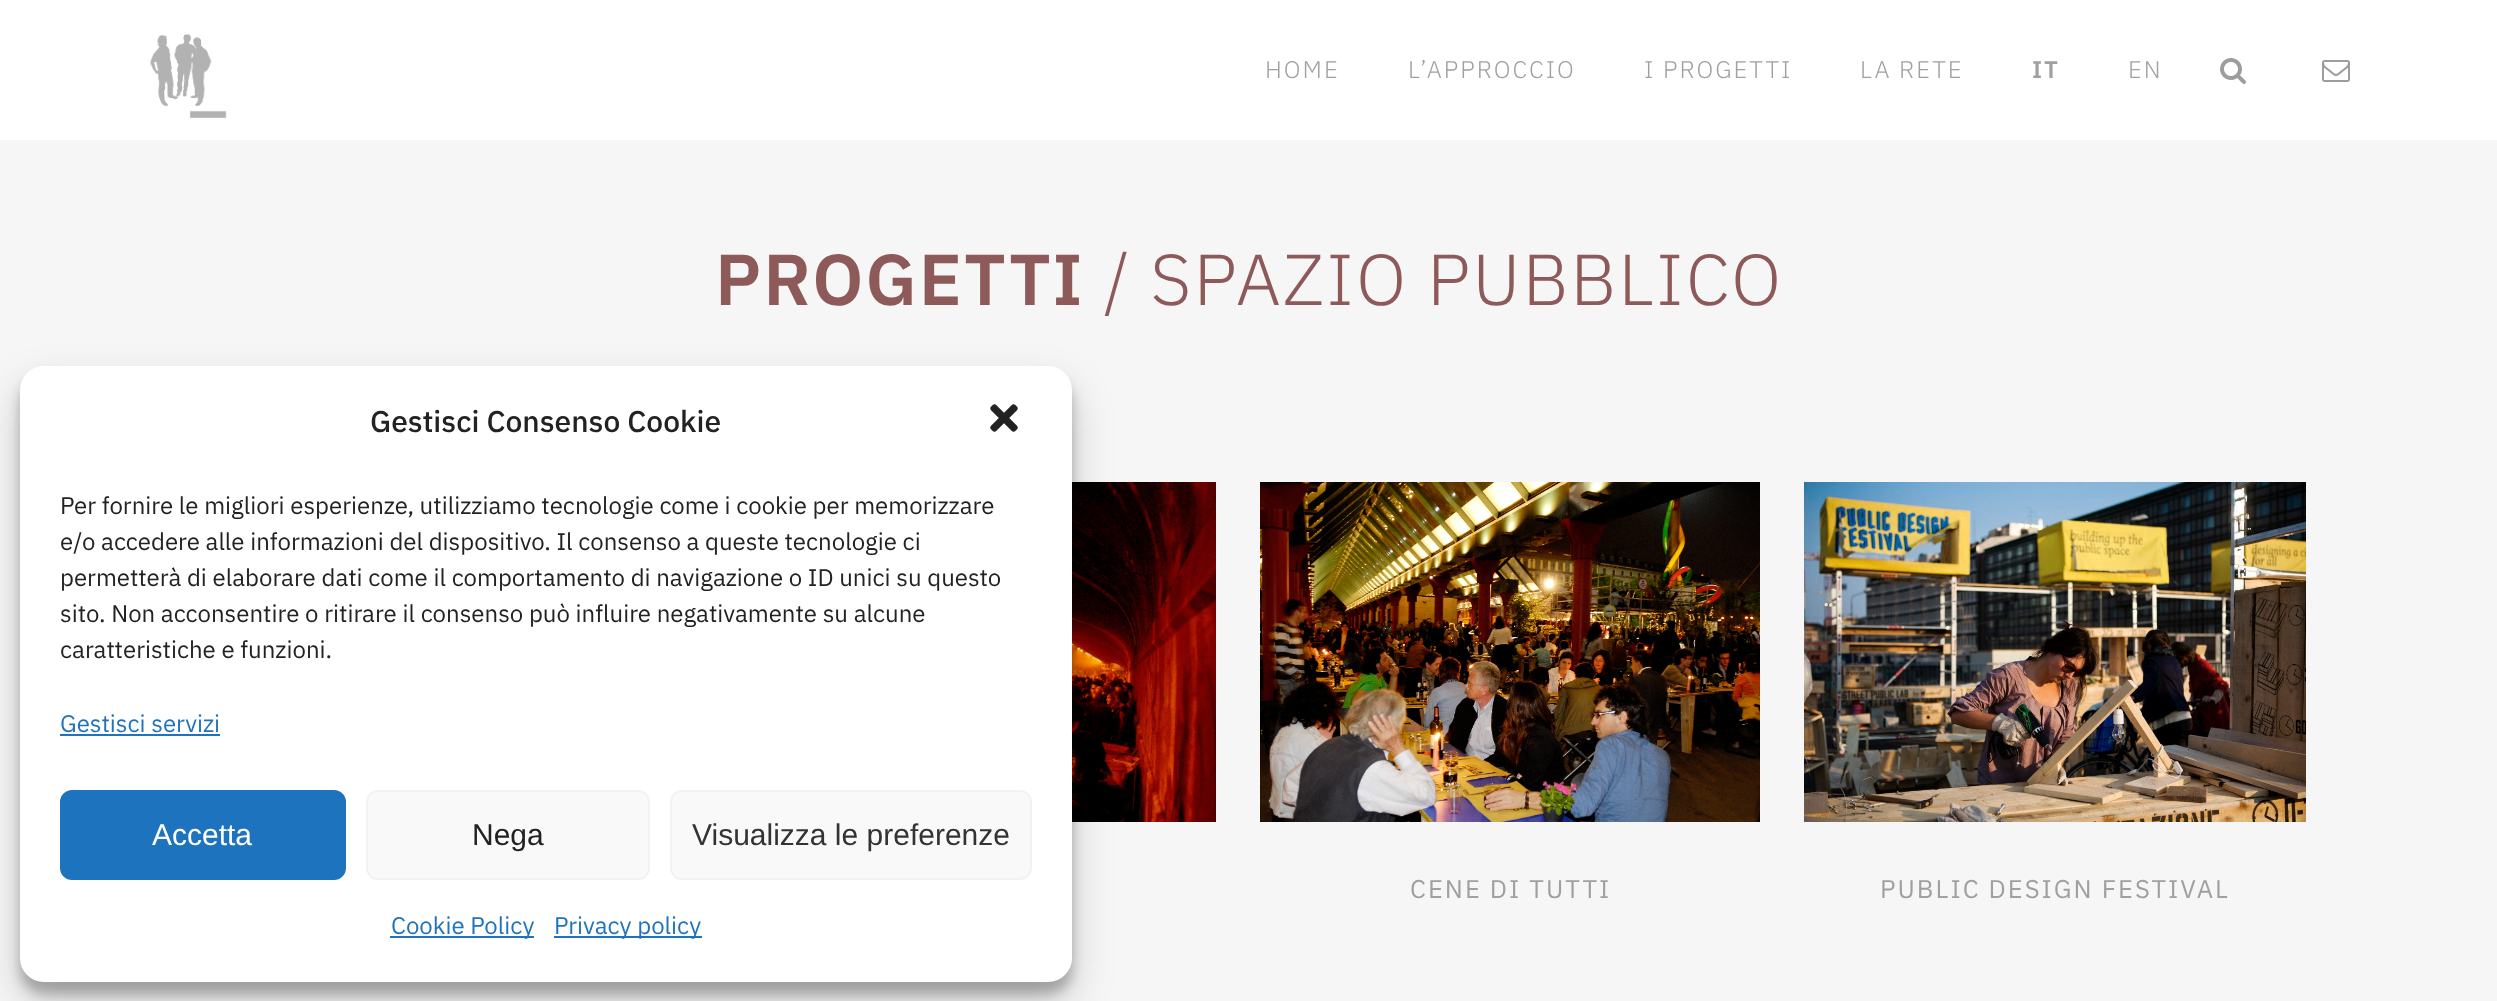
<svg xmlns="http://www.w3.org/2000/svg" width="2497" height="1001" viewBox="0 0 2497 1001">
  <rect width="100%" height="100%" fill="#f6f6f6"/>
  <image x="1072" y="482" width="144" height="340" href="img/5.png"/>
  <rect x="20" y="378" width="1052" height="616" rx="24" fill="#0000003b" filter="blur(6px)"/>
  <rect x="20" y="386" width="1052" height="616" rx="24" fill="#00000030" filter="blur(20px)"/>
  <rect x="20" y="366" width="1052" height="616" rx="24" fill="#fff"/>
  <image x="990" y="404" width="28" height="28" href="img/1.png"/>
  <path d="M60 734h160v2H60z" fill="#1e73be"/>
  <rect x="61" y="791" width="284" height="88" rx="11" fill="#1e73be" stroke="#1e73be" stroke-width="2"/>
  <rect x="367" y="791" width="282" height="88" rx="11" fill="#f9f9f9" stroke="#f2f2f2" stroke-width="2"/>
  <rect x="671" y="791" width="360" height="88" rx="11" fill="#f9f9f9" stroke="#f2f2f2" stroke-width="2"/>
  <path d="M390 936h144v2H390z" fill="#1e73be"/>
  <path d="M554 936h148v2H554z" fill="#1e73be"/>
  <path d="M0 0h2497v140H0z" fill="#fff"/>
  <image x="150" y="34" width="77" height="84" href="img/2.png"/>
  <image x="2220" y="58" width="26" height="26" href="img/3.png"/>
  <image x="2322" y="60" width="28" height="22" href="img/4.png"/>
  <image x="1260" y="482" width="500" height="340" href="img/6.png"/>
  <image x="1804" y="482" width="502" height="340" href="img/7.png"/>
  <text x="370" y="432" font-family="IBM Plex Sans" font-size="30" font-weight="500" fill="#222">Gestisci Consenso Cookie</text>
  <g font-family="IBM Plex Sans" font-size="24" fill="#222">
    <text x="60" y="514">Per fornire le migliori esperienze, utilizziamo tecnologie come i cookie per memorizzare</text>
    <text x="60" y="550">e/o accedere alle informazioni del dispositivo. Il consenso a queste tecnologie ci</text>
    <text x="60" y="586">permetterà di elaborare dati come il comportamento di navigazione o ID unici su questo</text>
    <text x="60" y="622">sito. Non acconsentire o ritirare il consenso può influire negativamente su alcune</text>
    <text x="60" y="658">caratteristiche e funzioni.</text>
  </g>
  <text x="60" y="732" font-family="IBM Plex Sans" font-size="24" fill="#1e73be">Gestisci servizi</text>
  <text x="152" y="845" font-family="Liberation Sans" font-size="30" fill="#fff">Accetta</text>
  <text x="472" y="845" font-family="Liberation Sans" font-size="30" fill="#222">Nega</text>
  <text x="692" y="845" font-family="Liberation Sans" font-size="30" fill="#333">Visualizza le preferenze</text>
  <g font-family="IBM Plex Sans" font-size="24" fill="#1e73be">
    <text x="391" y="934">Cookie Policy</text>
    <text x="554" y="934">Privacy policy</text>
  </g>
  <g font-family="IBM Plex Sans" font-size="24" font-weight="300" letter-spacing="2" fill="#a0a0a0">
    <text x="1265" y="78">HOME</text>
    <text x="1408" y="78">L’APPROCCIO</text>
    <text x="1644" y="78">I PROGETTI</text>
    <text x="1860" y="78">LA RETE</text>
  </g>
  <text x="2032" y="78" font-family="IBM Plex Sans" font-size="24" font-weight="600" letter-spacing="2" fill="#a0a0a0">IT</text>
  <text x="2128" y="78" font-family="IBM Plex Sans" font-size="24" font-weight="300" letter-spacing="2" fill="#a0a0a0">EN</text>
  <text x="715" y="305" font-family="IBM Plex Sans" font-size="72" font-weight="600" letter-spacing="2" fill="#8d5959">PROGETTI</text>
  <text x="1104" y="305" font-family="IBM Plex Sans" font-size="72" font-weight="300" letter-spacing="2" fill="#8d5959">/ SPAZIO PUBBLICO</text>
  <g font-family="IBM Plex Sans" font-size="25.6" letter-spacing="2" fill="#a0a0a0">
    <text x="1410" y="898">CENE DI TUTTI</text>
    <text x="1880" y="898">PUBLIC DESIGN FESTIVAL</text>
  </g>
</svg>
